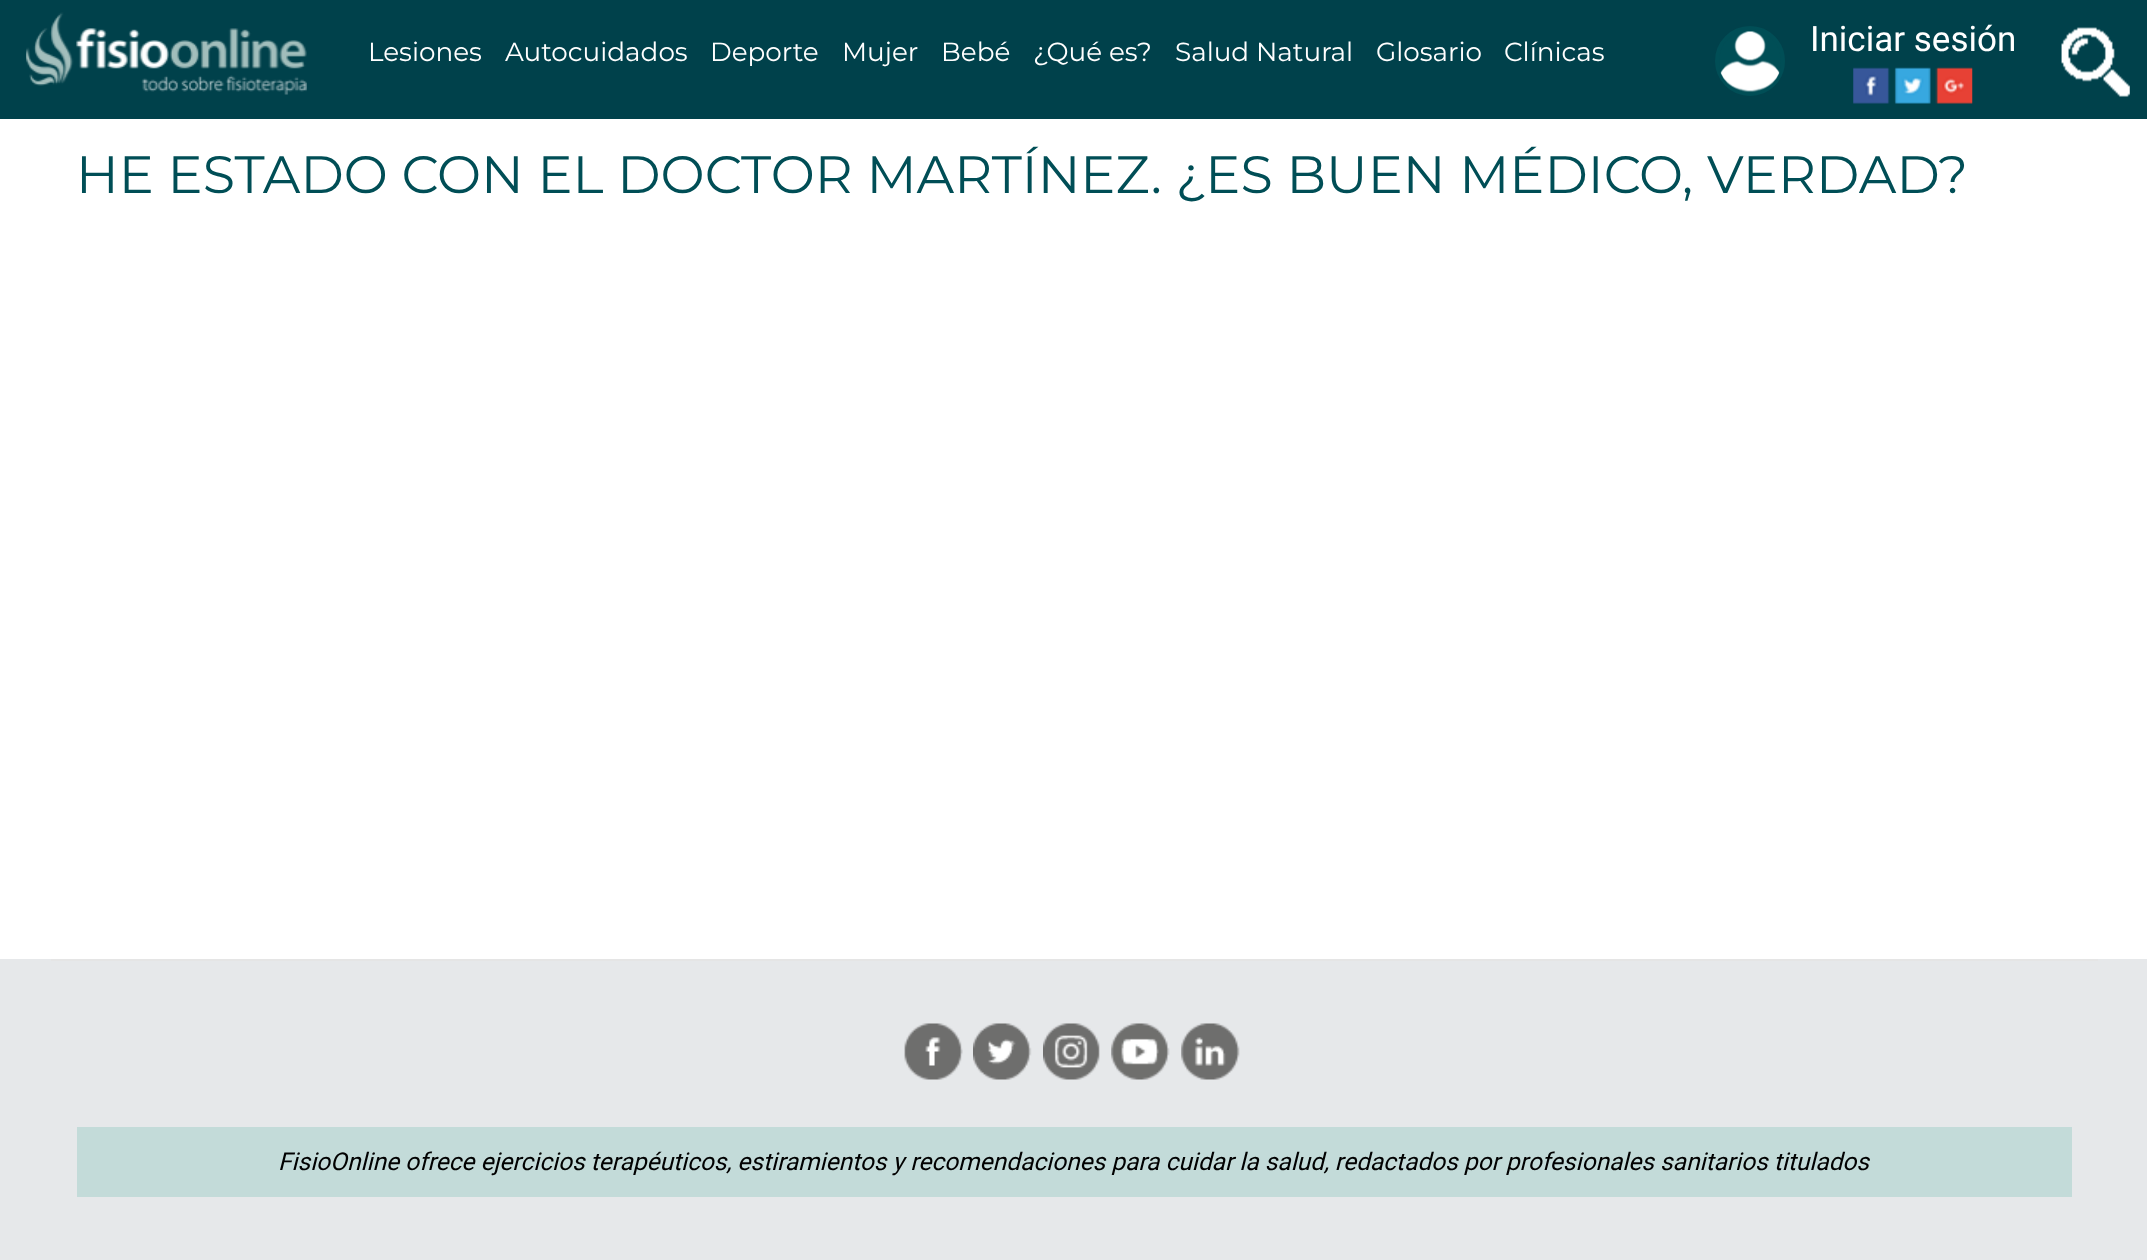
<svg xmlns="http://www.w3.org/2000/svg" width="2147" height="1260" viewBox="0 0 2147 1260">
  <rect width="100%" height="100%" fill="#fff"/>
  <path d="M0 0h2147v119H0z" fill="#00414b"/>
  <image x="26" y="12" width="281" height="83" href="img/1.png"/>
  <circle cx="1750" cy="61" r="33" fill="#004e56" stroke="#004e56" stroke-width="4"/>
  <image x="1720" y="31" width="60" height="61" href="img/2.png"/>
  <image x="1853" y="67" width="120" height="37" href="img/3.png"/>
  <image x="2061" y="27" width="69" height="70" href="img/4.png"/>
  <path d="M0 959h2147v301H0z" fill="#e6e8ea"/>
  <path d="M51 959h2047v2H51z" fill="#e5e5e5"/>
  <image x="904" y="1023" width="59" height="57" href="img/5.png"/>
  <image x="973" y="1023" width="59" height="57" href="img/6.png"/>
  <image x="1043" y="1023" width="57" height="57" href="img/7.png"/>
  <image x="1111" y="1023" width="59" height="57" href="img/8.png"/>
  <image x="1181" y="1023" width="59" height="57" href="img/9.png"/>
  <path d="M77 1127h1995v70H77z" fill="#c3dbd9"/>
  <g font-family="Montserrat" font-size="26.25" fill="#fff">
    <text x="368" y="61">Lesiones</text>
    <text x="505" y="61">Autocuidados</text>
    <text x="710" y="61">Deporte</text>
    <text x="842" y="61">Mujer</text>
    <text x="941" y="61">Bebé</text>
    <text x="1033" y="61">¿Qué es?</text>
    <text x="1175" y="61">Salud Natural</text>
    <text x="1376" y="61">Glosario</text>
    <text x="1504" y="61">Clínicas</text>
  </g>
  <text x="1810" y="51" font-family="Roboto" font-size="35" fill="#fff">Iniciar sesión</text>
  <text x="76" y="193" font-family="Montserrat" font-size="52.5" fill="#004e56">HE ESTADO CON EL DOCTOR MARTÍNEZ. ¿ES BUEN MÉDICO, VERDAD?</text>
  <text x="278" y="1170" font-family="Roboto" font-size="24.5" font-style="italic" fill="#010101">FisioOnline ofrece ejercicios terapéuticos, estiramientos y recomendaciones para cuidar la salud, redactados por profesionales sanitarios titulados</text>
</svg>
